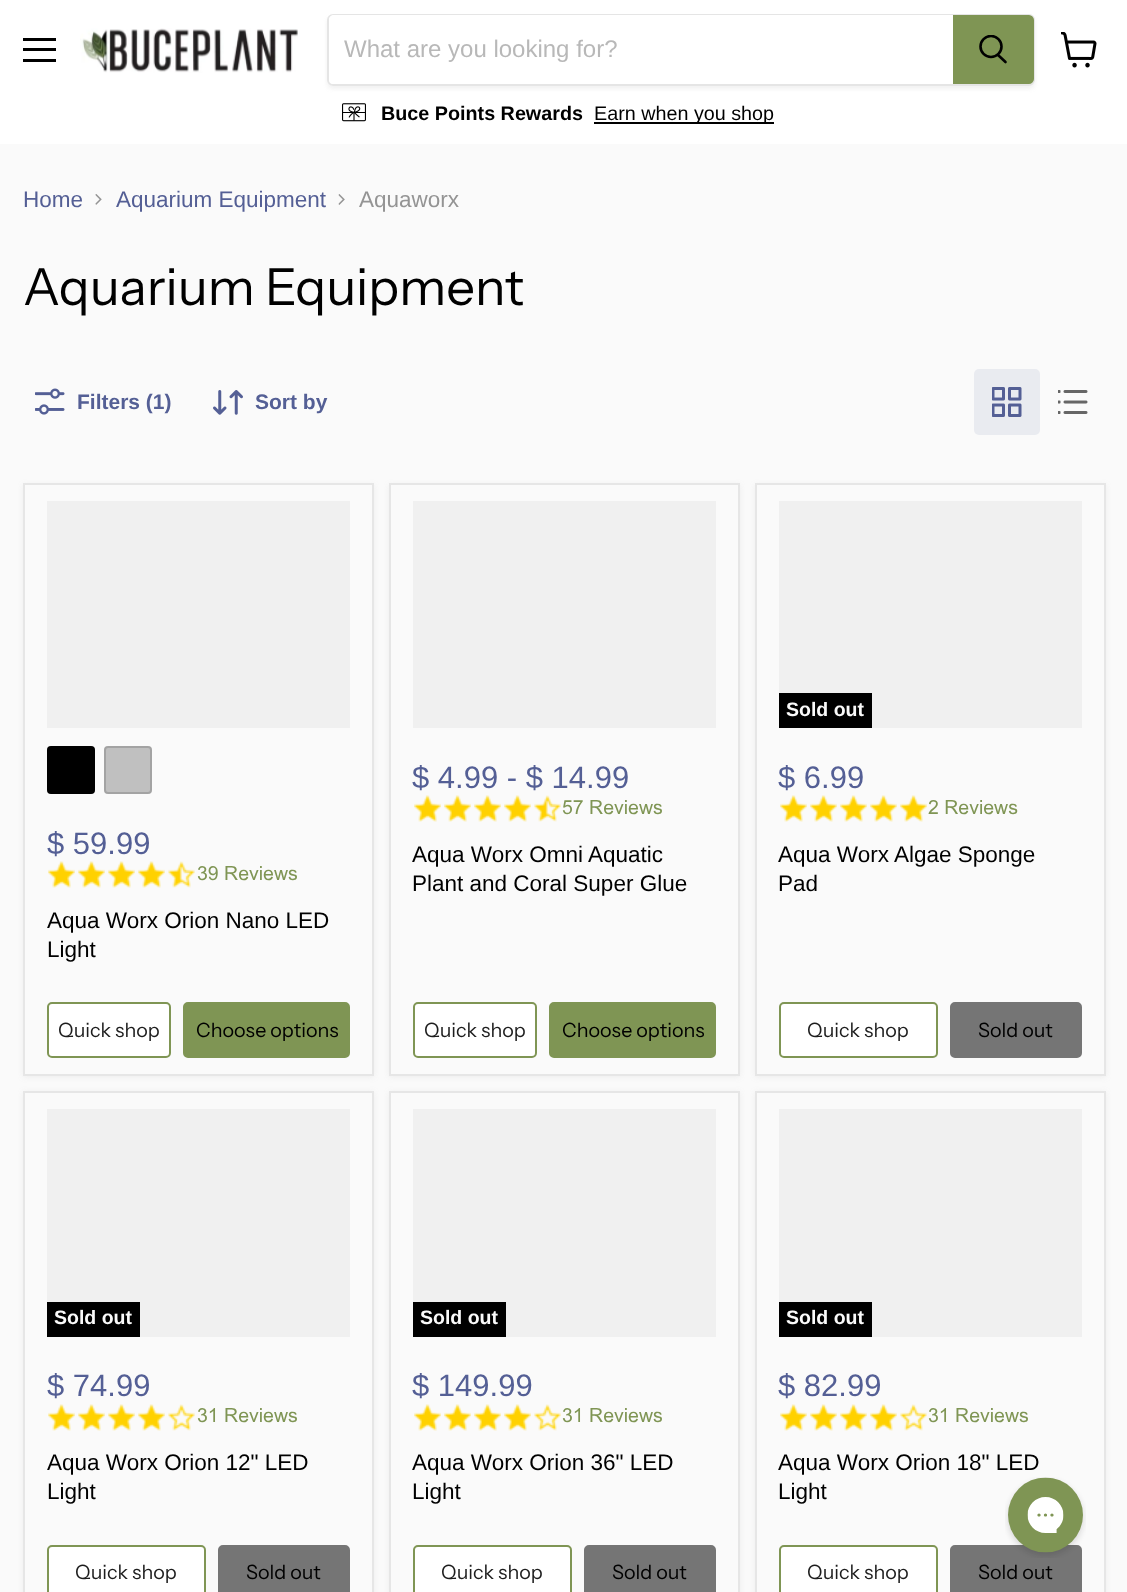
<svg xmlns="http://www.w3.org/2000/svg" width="1127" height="1592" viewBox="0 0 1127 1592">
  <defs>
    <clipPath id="clip1"><path d="M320 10H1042V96H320ZM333 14H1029C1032.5 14 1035 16.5 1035 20V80C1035 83.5 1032.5 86 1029 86H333C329.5 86 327 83.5 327 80V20C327 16.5 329.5 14 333 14Z" clip-rule="evenodd"/></clipPath>
    <clipPath id="clip2"><path d="M978 35h30v31H978z"/></clipPath>
  </defs>
  <rect width="100%" height="100%" fill="#fafafa"/>
  <path d="M0 0h1127v144H0z" fill="#fff"/>
  <path d="M23 38h33v3H23z" fill="#000"/>
  <path d="M23 48h33v3H23z" fill="#000"/>
  <path d="M23 59h33v3H23z" fill="#000"/>
  <image x="80" y="28" width="218" height="45" href="img/1.png"/>
  <g clip-path="url(#clip1)">
    <rect x="327" y="17" width="708" height="72" rx="6" fill="#7d7d7d1c" filter="blur(2px)"/>
  </g>
  <rect x="328" y="15" width="706" height="70" rx="5" fill="none" stroke="#7d7d7d33" stroke-width="2"/>
  <path d="M334 15H953V84H334C331 84 329 82 329 79V20C329 17 331 15 334 15Z" fill="#fff"/>
  <path d="M954 16H1029C1031 16 1033 18 1033 20V79C1033 81 1031 83 1029 83H954Z" fill="#7f9554" stroke="#7f9554" stroke-width="2"/>
  <path d="M1005.5 62L998 55" fill="none" stroke="#000" stroke-width="2.6" stroke-linecap="round"/>
  <g clip-path="url(#clip2)">
    <circle cx="991" cy="46.5" r="10.5" fill="none" stroke="#000" stroke-width="2.6"/>
  </g>
  <image x="342" y="103" width="24" height="19" href="img/2.png"/>
  <path d="M594 122h180v2H594z" fill="#000"/>
  <image x="1061" y="32" width="36" height="36" href="img/3.png"/>
  <image x="95" y="194" width="7" height="11" href="img/4.png"/>
  <image x="338" y="194" width="7" height="11" href="img/5.png"/>
  <image x="35" y="388" width="30" height="27" href="img/6.png"/>
  <image x="213" y="390" width="30" height="25" href="img/7.png"/>
  <rect x="974" y="369" width="66" height="66" rx="5" fill="#e9ebf0"/>
  <image x="992" y="387" width="30" height="30" href="img/8.png"/>
  <image x="1058" y="390" width="30" height="24" href="img/9.png"/>
  <path d="M23 485h351v592H23z" fill="#7d7d7d1c" filter="blur(3px)"/>
  <path d="M24 484h349v591H24z" fill="#fafafa" stroke="#e6e6e6" stroke-width="2"/>
  <path d="M47 501h303v227H47z" fill="#f0f0f0"/>
  <rect x="47" y="746" width="48" height="48" rx="4" fill="#000"/>
  <rect x="48" y="747" width="46" height="46" rx="3" fill="none" stroke="#00000026" stroke-width="2"/>
  <rect x="104" y="746" width="48" height="48" rx="4" fill="#c0c0c0"/>
  <rect x="105" y="747" width="46" height="46" rx="3" fill="none" stroke="#00000026" stroke-width="2"/>
  <image x="48" y="861" width="27" height="27" href="img/10.png"/>
  <image x="78" y="861" width="27" height="27" href="img/10.png"/>
  <image x="108" y="861" width="27" height="27" href="img/10.png"/>
  <image x="138" y="861" width="27" height="27" href="img/10.png"/>
  <image x="168" y="861" width="27" height="27" href="img/11.png"/>
  <rect x="48" y="1003" width="122" height="54" rx="4" fill="#fff" stroke="#7f9554" stroke-width="2"/>
  <rect x="184" y="1003" width="165" height="54" rx="4" fill="#7f9554" stroke="#7f9554" stroke-width="2"/>
  <path d="M389 485h351v592H389z" fill="#7d7d7d1c" filter="blur(3px)"/>
  <path d="M390 484h349v591H390z" fill="#fafafa" stroke="#e6e6e6" stroke-width="2"/>
  <path d="M413 501h303v227H413z" fill="#f0f0f0"/>
  <image x="414" y="795" width="27" height="27" href="img/12.png"/>
  <image x="444" y="795" width="27" height="27" href="img/12.png"/>
  <image x="474" y="795" width="27" height="27" href="img/12.png"/>
  <image x="504" y="795" width="27" height="27" href="img/13.png"/>
  <image x="534" y="795" width="27" height="27" href="img/11.png"/>
  <rect x="414" y="1003" width="122" height="54" rx="4" fill="#fff" stroke="#7f9554" stroke-width="2"/>
  <rect x="550" y="1003" width="165" height="54" rx="4" fill="#7f9554" stroke="#7f9554" stroke-width="2"/>
  <path d="M755 485h351v592H755z" fill="#7d7d7d1c" filter="blur(3px)"/>
  <path d="M756 484h349v591H756z" fill="#fafafa" stroke="#e6e6e6" stroke-width="2"/>
  <path d="M779 501h303v227H779z" fill="#f0f0f0"/>
  <path d="M779 693h93v35H779z" fill="#000"/>
  <image x="780" y="795" width="27" height="27" href="img/10.png"/>
  <image x="810" y="795" width="27" height="27" href="img/10.png"/>
  <image x="840" y="795" width="27" height="27" href="img/10.png"/>
  <image x="870" y="795" width="27" height="27" href="img/10.png"/>
  <image x="900" y="795" width="27" height="27" href="img/10.png"/>
  <rect x="780" y="1003" width="157" height="54" rx="4" fill="#fff" stroke="#7f9554" stroke-width="2"/>
  <rect x="951" y="1003" width="130" height="54" rx="4" fill="#757575" stroke="#757575" stroke-width="2"/>
  <path d="M23 1092h351v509H23z" fill="#7d7d7d1c" filter="blur(3px)"/>
  <path d="M24 1092h349v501H24z" fill="#fafafa" stroke="#e6e6e6" stroke-width="2"/>
  <path d="M47 1109h303v228H47z" fill="#f0f0f0"/>
  <path d="M47 1302h93v35H47z" fill="#000"/>
  <image x="48" y="1404" width="27" height="27" href="img/10.png"/>
  <image x="78" y="1404" width="27" height="27" href="img/10.png"/>
  <image x="108" y="1404" width="27" height="27" href="img/10.png"/>
  <image x="138" y="1404" width="27" height="27" href="img/10.png"/>
  <image x="168" y="1404" width="27" height="27" href="img/14.png"/>
  <rect x="48" y="1546" width="157" height="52" rx="4" fill="#fff" stroke="#7f9554" stroke-width="2"/>
  <rect x="219" y="1546" width="130" height="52" rx="4" fill="#757575" stroke="#757575" stroke-width="2"/>
  <path d="M389 1092h351v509H389z" fill="#7d7d7d1c" filter="blur(3px)"/>
  <path d="M390 1092h349v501H390z" fill="#fafafa" stroke="#e6e6e6" stroke-width="2"/>
  <path d="M413 1109h303v228H413z" fill="#f0f0f0"/>
  <path d="M413 1302h93v35H413z" fill="#000"/>
  <image x="414" y="1404" width="27" height="27" href="img/12.png"/>
  <image x="444" y="1404" width="27" height="27" href="img/12.png"/>
  <image x="474" y="1404" width="27" height="27" href="img/12.png"/>
  <image x="504" y="1404" width="27" height="27" href="img/13.png"/>
  <image x="534" y="1404" width="27" height="27" href="img/14.png"/>
  <rect x="414" y="1546" width="157" height="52" rx="4" fill="#fff" stroke="#7f9554" stroke-width="2"/>
  <rect x="585" y="1546" width="130" height="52" rx="4" fill="#757575" stroke="#757575" stroke-width="2"/>
  <path d="M755 1092h351v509H755z" fill="#7d7d7d1c" filter="blur(3px)"/>
  <path d="M756 1092h349v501H756z" fill="#fafafa" stroke="#e6e6e6" stroke-width="2"/>
  <path d="M779 1109h303v228H779z" fill="#f0f0f0"/>
  <path d="M779 1302h93v35H779z" fill="#000"/>
  <image x="780" y="1404" width="27" height="27" href="img/10.png"/>
  <image x="810" y="1404" width="27" height="27" href="img/10.png"/>
  <image x="840" y="1404" width="27" height="27" href="img/10.png"/>
  <image x="870" y="1404" width="27" height="27" href="img/10.png"/>
  <image x="900" y="1404" width="27" height="27" href="img/14.png"/>
  <rect x="780" y="1546" width="157" height="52" rx="4" fill="#fff" stroke="#7f9554" stroke-width="2"/>
  <rect x="951" y="1546" width="130" height="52" rx="4" fill="#757575" stroke="#757575" stroke-width="2"/>
  <image x="1005" y="1477" width="81" height="81" href="img/15.png"/>
  <text x="344" y="57" font-family="Liberation Sans" font-size="24" fill="#b8b8b8">What are you looking for?</text>
  <text x="381" y="120" font-family="Liberation Sans" font-size="19.75" font-weight="bold" fill="#000">Buce Points Rewards</text>
  <text x="594" y="120" font-family="Liberation Sans" font-size="19.75" fill="#000">Earn when you shop</text>
  <g font-family="Liberation Sans" font-size="22.5" fill="#545f95">
    <text x="23" y="207">Home</text>
    <text x="116" y="207">Aquarium Equipment</text>
  </g>
  <text x="359" y="207" font-family="Liberation Sans" font-size="22.5" fill="#949494">Aquaworx</text>
  <text x="23" y="305" font-family="Instrument Sans" font-size="51" fill="#000">Aquarium Equipment</text>
  <g font-family="Liberation Sans" font-size="21" font-weight="bold" fill="#545f95">
    <text x="77" y="409">Filters (1)</text>
    <text x="255" y="409">Sort by</text>
  </g>
  <text x="47" y="854" font-family="Liberation Sans" font-size="31" fill="#545f95">$ 59.99</text>
  <text x="197" y="880" font-family="Arial" font-size="19.5" fill="#7f9554">39 Reviews</text>
  <g font-family="Liberation Sans" font-size="22.5" fill="#000">
    <text x="47" y="928">Aqua Worx Orion Nano LED</text>
    <text x="47" y="957">Light</text>
  </g>
  <text x="58" y="1037" font-family="Instrument Sans" font-size="19.75" fill="#1d1d1d">Quick shop</text>
  <text x="196" y="1037" font-family="Instrument Sans" font-size="19.75" fill="#000">Choose options</text>
  <text x="412" y="788" font-family="Liberation Sans" font-size="31" fill="#545f95">$ 4.99 - $ 14.99</text>
  <text x="562" y="814" font-family="Arial" font-size="19.5" fill="#7f9554">57 Reviews</text>
  <g font-family="Liberation Sans" font-size="22.5" fill="#000">
    <text x="412" y="862">Aqua Worx Omni Aquatic</text>
    <text x="412" y="891">Plant and Coral Super Glue</text>
  </g>
  <text x="424" y="1037" font-family="Instrument Sans" font-size="19.75" fill="#1d1d1d">Quick shop</text>
  <text x="562" y="1037" font-family="Instrument Sans" font-size="19.75" fill="#000">Choose options</text>
  <text x="786" y="716" font-family="Liberation Sans" font-size="19.5" font-weight="bold" fill="#fafafa">Sold out</text>
  <text x="778" y="788" font-family="Liberation Sans" font-size="31" fill="#545f95">$ 6.99</text>
  <text x="928" y="814" font-family="Arial" font-size="19.5" fill="#7f9554">2 Reviews</text>
  <g font-family="Liberation Sans" font-size="22.5" fill="#000">
    <text x="778" y="862">Aqua Worx Algae Sponge</text>
    <text x="778" y="891">Pad</text>
  </g>
  <text x="807" y="1037" font-family="Instrument Sans" font-size="19.75" fill="#1d1d1d">Quick shop</text>
  <text x="978" y="1037" font-family="Instrument Sans" font-size="19.75" fill="#000">Sold out</text>
  <text x="54" y="1324" font-family="Liberation Sans" font-size="19.5" font-weight="bold" fill="#fafafa">Sold out</text>
  <text x="47" y="1396" font-family="Liberation Sans" font-size="31" fill="#545f95">$ 74.99</text>
  <text x="197" y="1422" font-family="Arial" font-size="19.5" fill="#7f9554">31 Reviews</text>
  <g font-family="Liberation Sans" font-size="22.5" fill="#000">
    <text x="47" y="1470">Aqua Worx Orion 12" LED</text>
    <text x="47" y="1499">Light</text>
  </g>
  <text x="75" y="1579" font-family="Instrument Sans" font-size="19.75" fill="#1d1d1d">Quick shop</text>
  <text x="246" y="1579" font-family="Instrument Sans" font-size="19.75" fill="#000">Sold out</text>
  <text x="420" y="1324" font-family="Liberation Sans" font-size="19.5" font-weight="bold" fill="#fafafa">Sold out</text>
  <text x="412" y="1396" font-family="Liberation Sans" font-size="31" fill="#545f95">$ 149.99</text>
  <text x="562" y="1422" font-family="Arial" font-size="19.5" fill="#7f9554">31 Reviews</text>
  <g font-family="Liberation Sans" font-size="22.5" fill="#000">
    <text x="412" y="1470">Aqua Worx Orion 36" LED</text>
    <text x="412" y="1499">Light</text>
  </g>
  <text x="441" y="1579" font-family="Instrument Sans" font-size="19.75" fill="#1d1d1d">Quick shop</text>
  <text x="612" y="1579" font-family="Instrument Sans" font-size="19.75" fill="#000">Sold out</text>
  <text x="786" y="1324" font-family="Liberation Sans" font-size="19.5" font-weight="bold" fill="#fafafa">Sold out</text>
  <text x="778" y="1396" font-family="Liberation Sans" font-size="31" fill="#545f95">$ 82.99</text>
  <text x="928" y="1422" font-family="Arial" font-size="19.5" fill="#7f9554">31 Reviews</text>
  <g font-family="Liberation Sans" font-size="22.5" fill="#000">
    <text x="778" y="1470">Aqua Worx Orion 18" LED</text>
    <text x="778" y="1499">Light</text>
  </g>
  <text x="807" y="1579" font-family="Instrument Sans" font-size="19.75" fill="#1d1d1d">Quick shop</text>
  <text x="978" y="1579" font-family="Instrument Sans" font-size="19.75" fill="#000">Sold out</text>
</svg>
